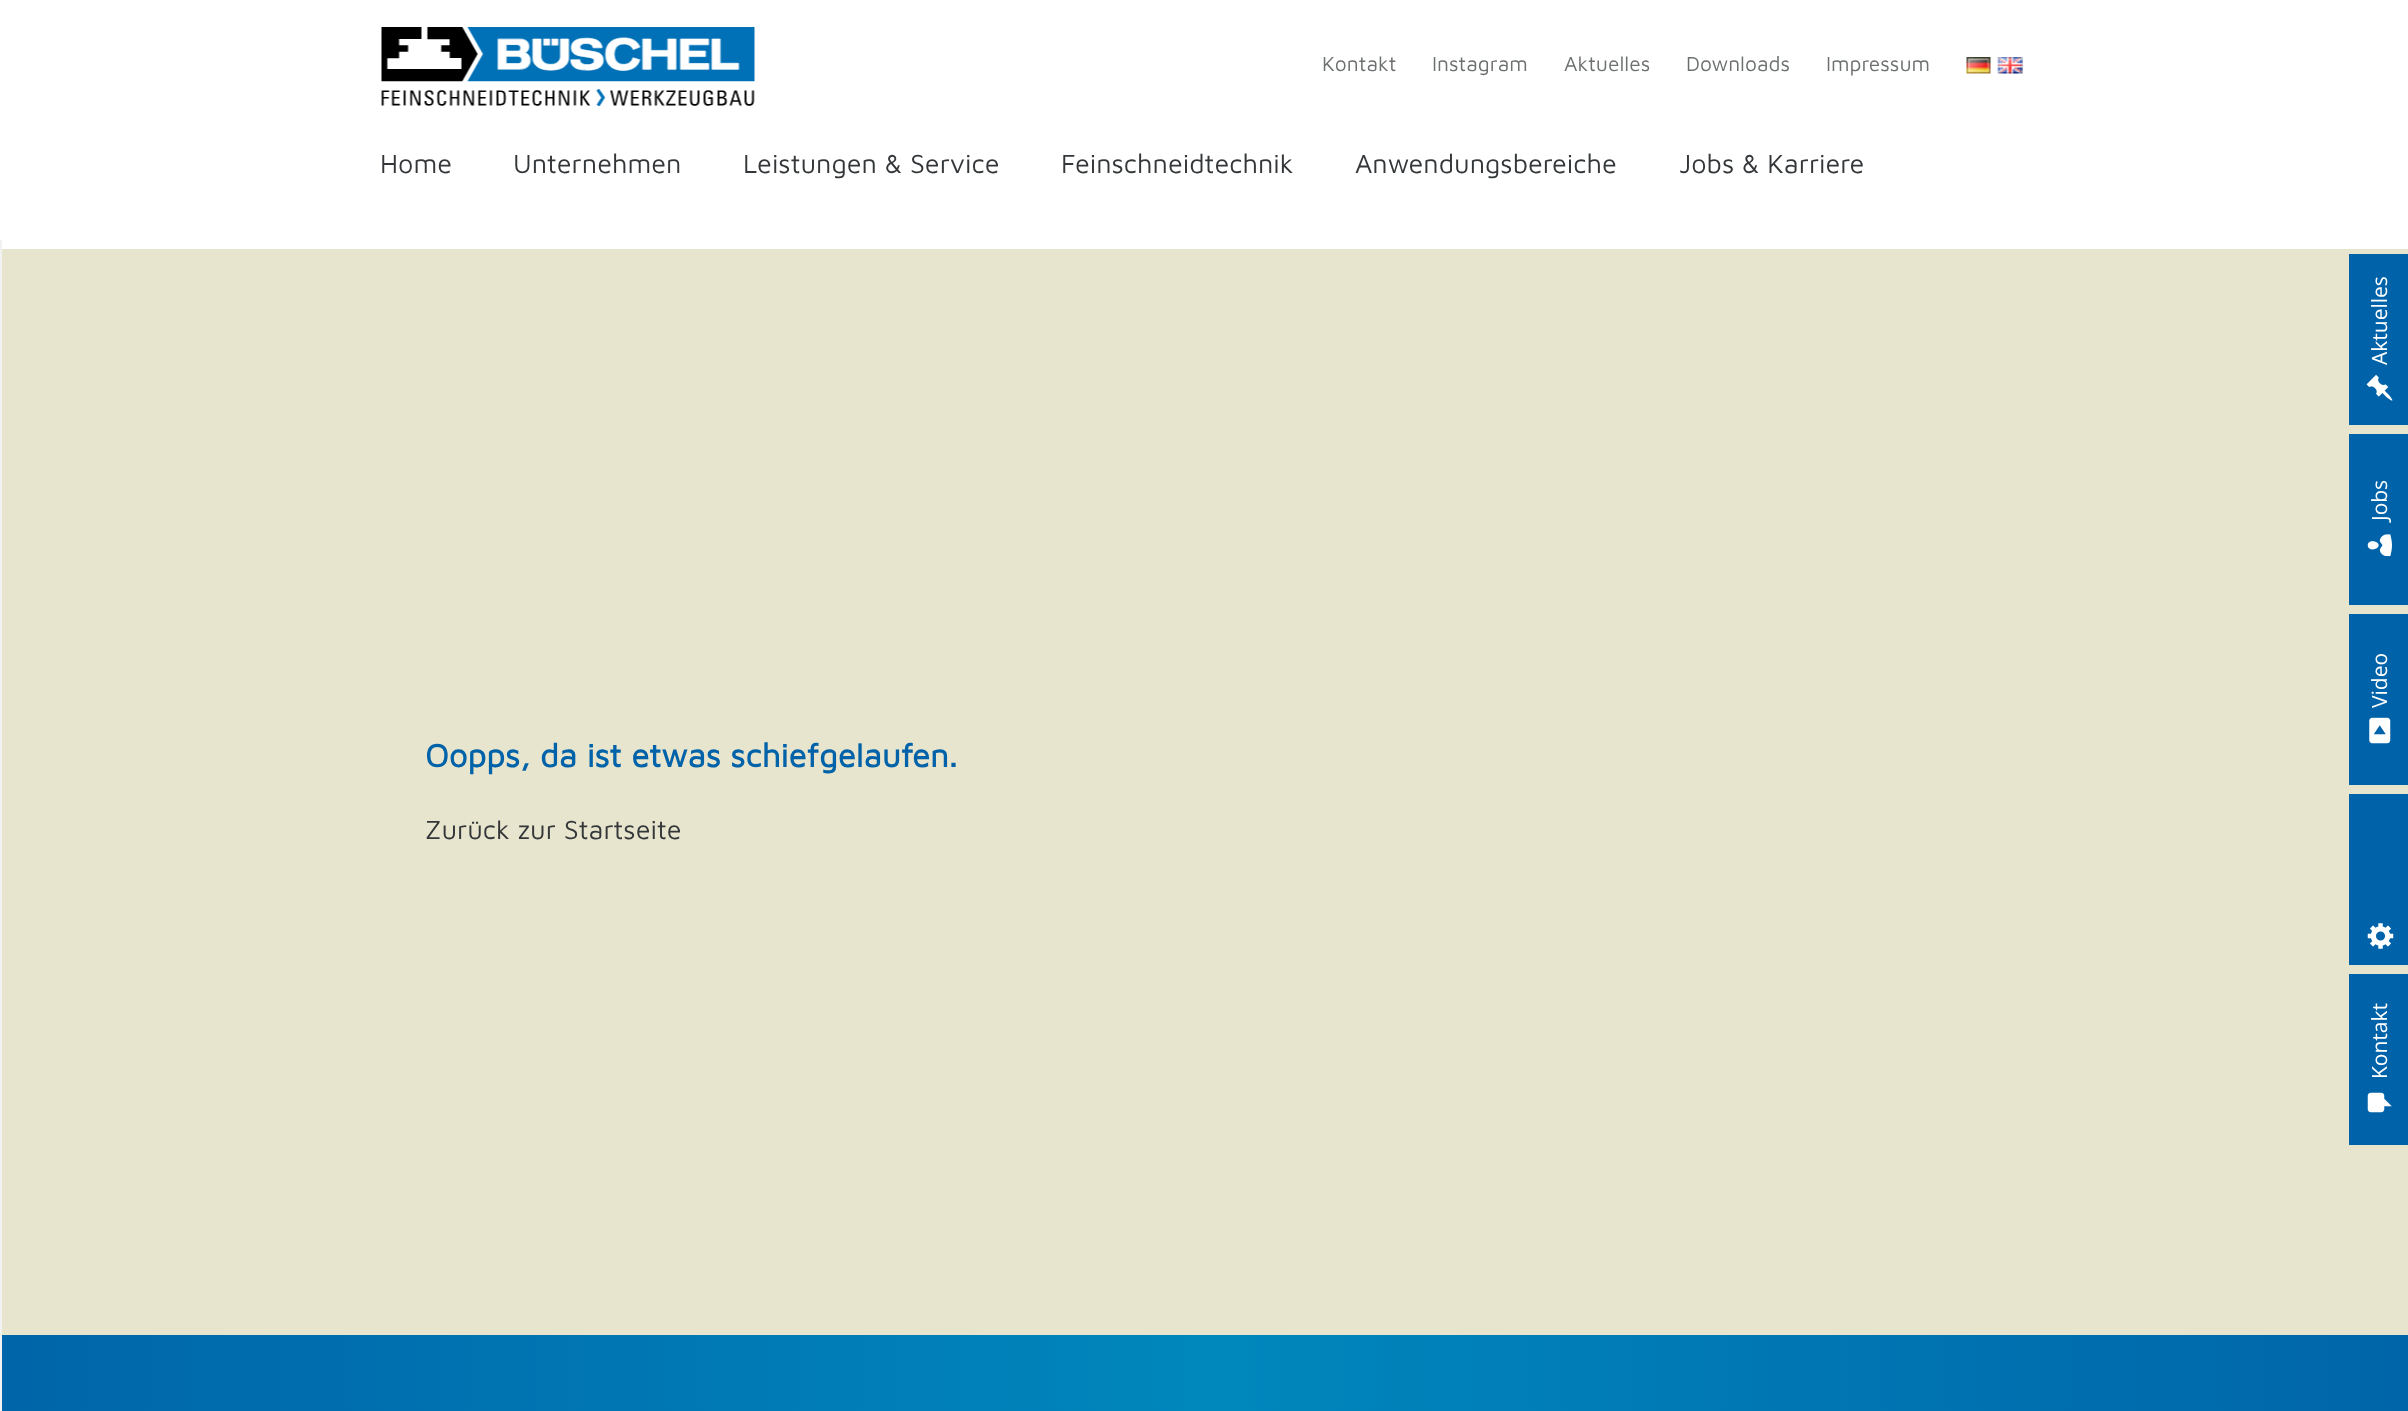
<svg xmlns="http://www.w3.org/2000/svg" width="2408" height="1411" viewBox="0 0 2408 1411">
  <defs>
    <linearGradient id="g1" gradientUnits="userSpaceOnUse" x1="1.5" y1="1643" x2="2408" y2="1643"><stop offset="0" stop-color="#0065a9"/><stop offset="0.5" stop-color="#0087bc"/><stop offset="0.51" stop-color="#0087bc"/><stop offset="1" stop-color="#0065a9"/></linearGradient>
  </defs>
  <rect width="100%" height="100%" fill="#fff"/>
  <path d="M0 240h2v1171H0z" fill="#f2f2f2"/>
  <image x="381" y="27" width="374" height="80" href="img/1.png"/>
  <image x="1966" y="57" width="25" height="17" href="img/2.png"/>
  <image x="1997" y="57" width="26" height="17" href="img/3.png"/>
  <path d="M2 249h2406v1086H2z" fill="#e8e5ce"/>
  <path d="M2 1335h2406v76H2z" fill="url(#g1)"/>
  <path d="M2349 254h59v171H2349z" fill="#0062a8"/>
  <image x="2366" y="374" width="27" height="27" href="img/4.png"/>
  <path d="M2349 434h59v171H2349z" fill="#0062a8"/>
  <image x="2367" y="534" width="25" height="23" href="img/5.png"/>
  <path d="M2349 614h59v171H2349z" fill="#0062a8"/>
  <image x="2369" y="717" width="22" height="27" href="img/6.png"/>
  <path d="M2349 794h59v171H2349z" fill="#0062a8"/>
  <image x="2367" y="923" width="27" height="26" href="img/7.png"/>
  <path d="M2349 974h59v171H2349z" fill="#0062a8"/>
  <image x="2367" y="1092" width="25" height="21" href="img/8.png"/>
  <g font-family="Maven Pro" font-size="21" fill="#6d7071">
    <text x="1322" y="71">Kontakt</text>
    <text x="1432" y="71">Instagram</text>
    <text x="1564" y="71">Aktuelles</text>
    <text x="1686" y="71">Downloads</text>
    <text x="1826" y="71">Impressum</text>
  </g>
  <g font-family="Maven Pro" font-size="27" fill="#343739">
    <text x="380" y="173">Home</text>
    <text x="513" y="173">Unternehmen</text>
    <text x="743" y="173">Leistungen &amp; Service</text>
    <text x="1061" y="173">Feinschneidtechnik</text>
    <text x="1355" y="173">Anwendungsbereiche</text>
    <text x="1679" y="173">Jobs &amp; Karriere</text>
  </g>
  <text x="425" y="767" font-family="Maven Pro" font-size="33" font-weight="bold" fill="#0062a8">Oopps, da ist etwas schiefgelaufen.</text>
  <text x="425" y="839" font-family="Maven Pro" font-size="27" fill="#343739">Zurück zur Startseite</text>
  <g font-family="Open Sans" font-size="21" fill="#fff">
    <text x="2387" y="365" transform="rotate(-90 2387 365)">Aktuelles</text>
    <text x="2387" y="521" transform="rotate(-90 2387 521)">Jobs</text>
    <text x="2387" y="708" transform="rotate(-90 2387 708)">Video</text>
    <text x="2387" y="1079" transform="rotate(-90 2387 1079)">Kontakt</text>
  </g>
</svg>
